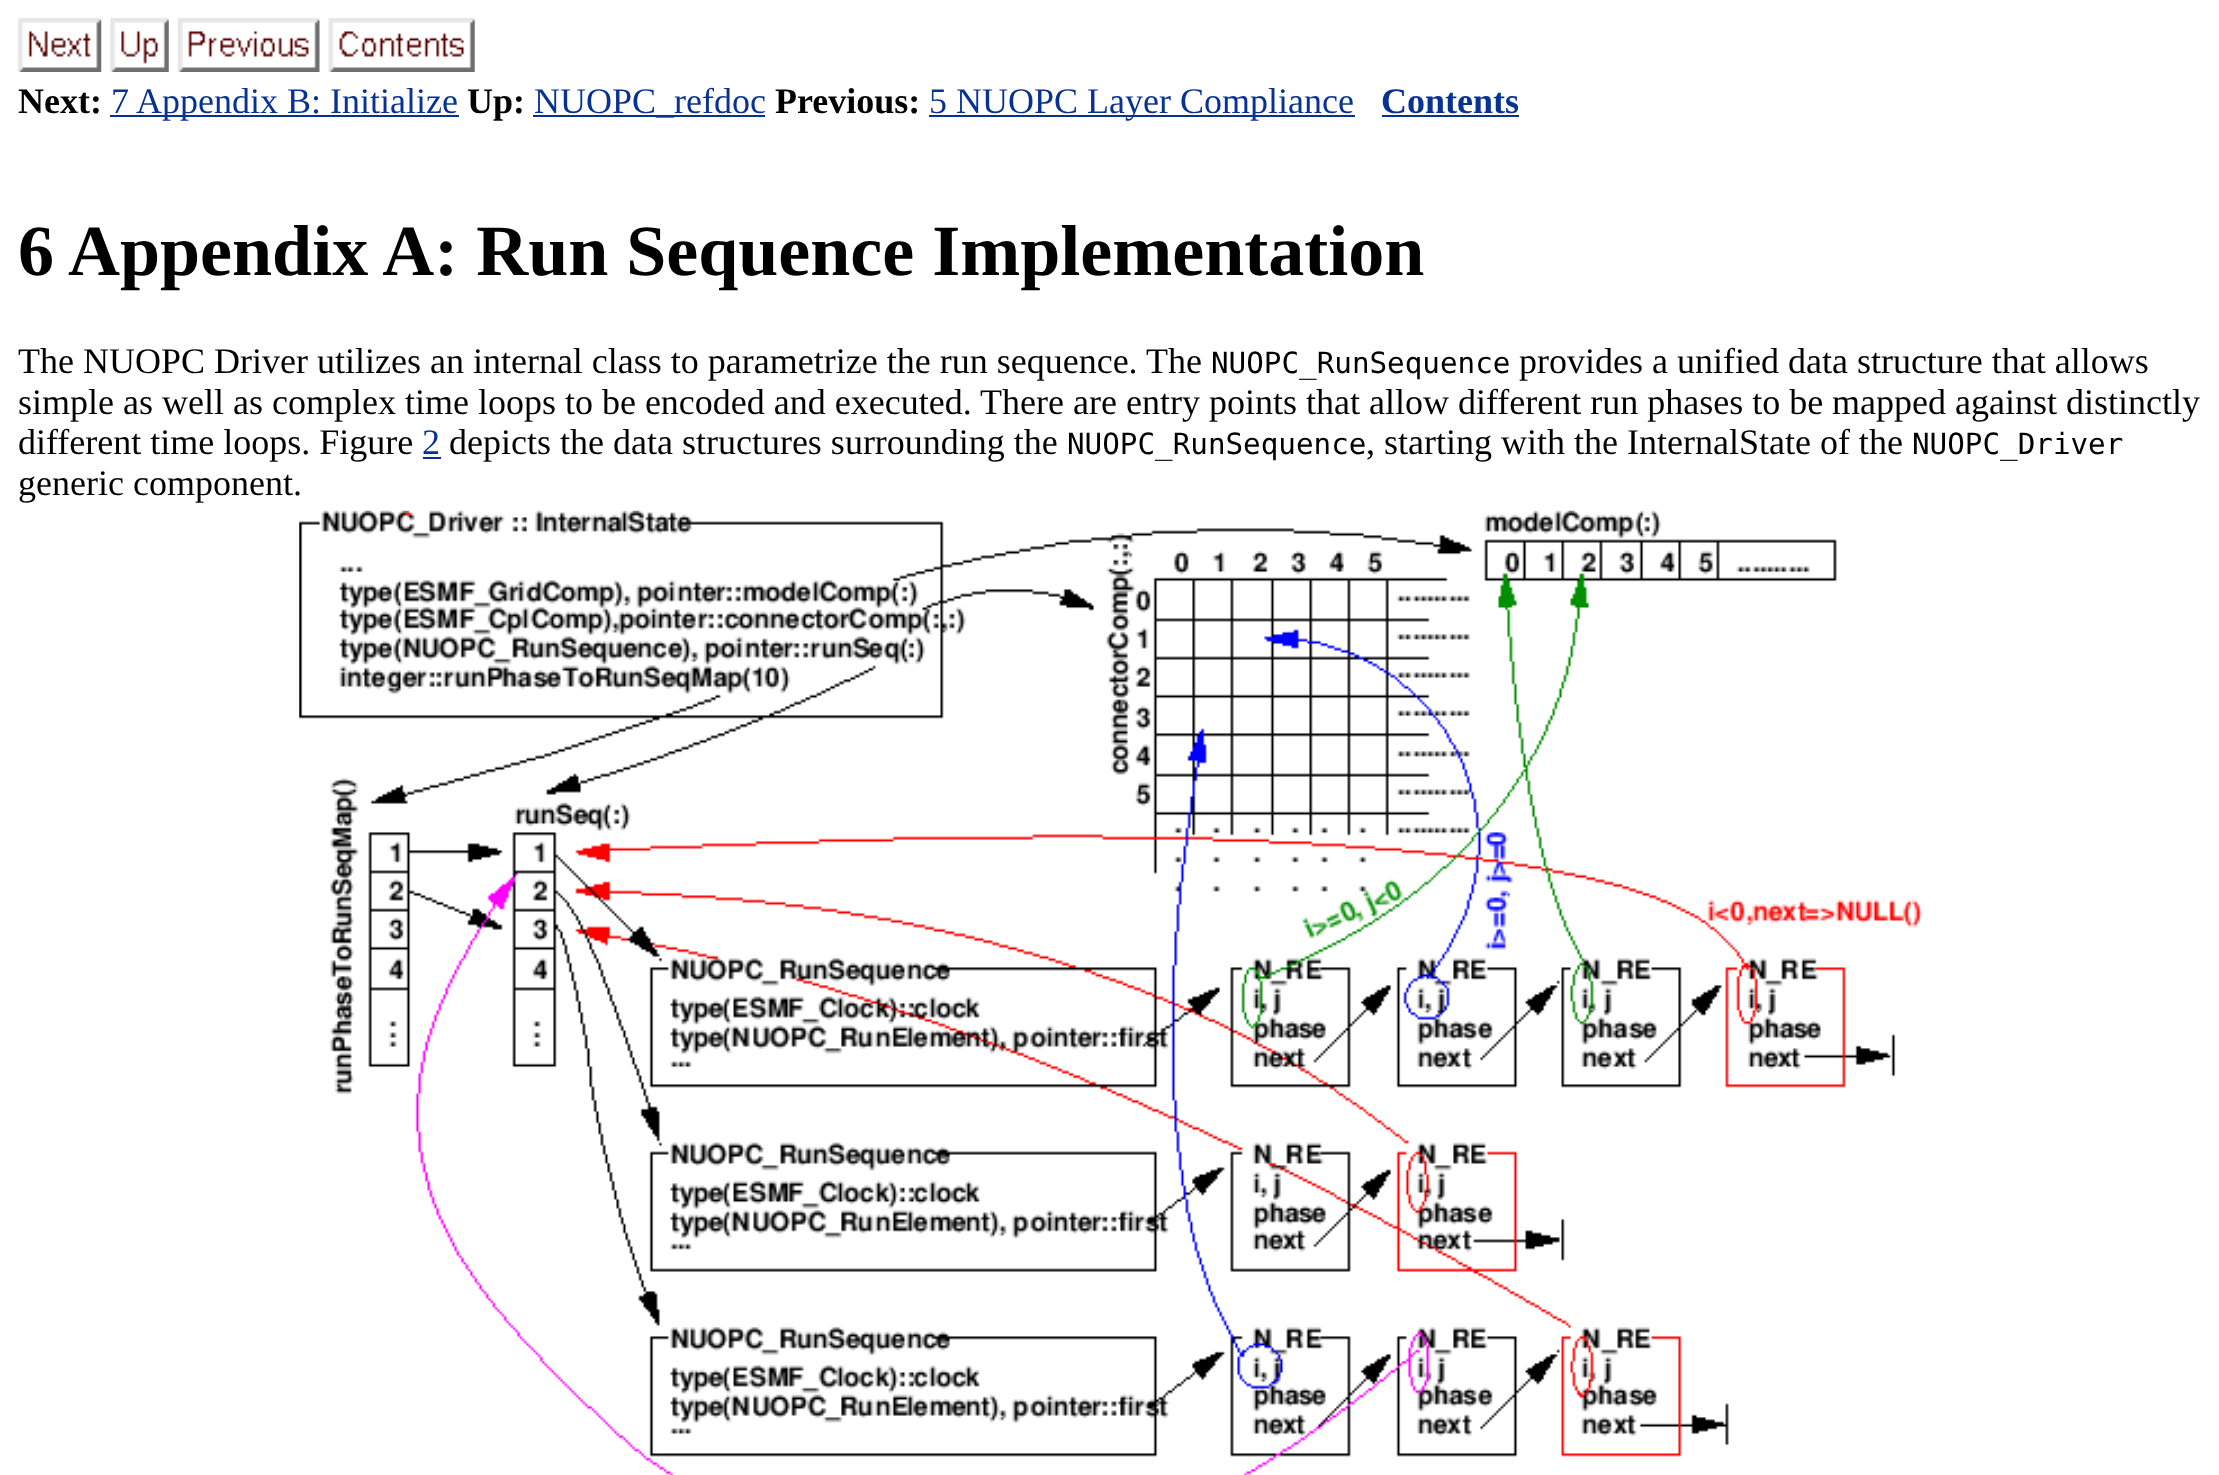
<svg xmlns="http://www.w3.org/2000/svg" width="2219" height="1475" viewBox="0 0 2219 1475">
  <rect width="100%" height="100%" fill="#fff"/>
  <image x="18" y="18" width="84" height="54" href="img/1.png"/>
  <image x="110" y="18" width="59" height="54" href="img/2.png"/>
  <image x="177" y="18" width="143" height="54" href="img/3.png"/>
  <image x="328" y="18" width="147" height="54" href="img/4.png"/>
  <path d="M110 115h349v2H110z" fill="#083194"/>
  <path d="M533 115h232v2H533z" fill="#083194"/>
  <path d="M929 115h426v2H929z" fill="#083194"/>
  <path d="M1382 115h137v2H1382z" fill="#083194"/>
  <path d="M423 457h18v2H423z" fill="#083194"/>
  <image x="299" y="510" width="1623" height="965" href="img/5.png"/>
  <text x="18" y="113" font-family="Liberation Serif" font-size="36" font-weight="bold" fill="#000">Next:</text>
  <text x="111" y="113" font-family="Liberation Serif" font-size="36" fill="#083194">7 Appendix B: Initialize</text>
  <text x="467" y="113" font-family="Liberation Serif" font-size="36" font-weight="bold" fill="#000">Up:</text>
  <text x="534" y="113" font-family="Liberation Serif" font-size="36" fill="#083194">NUOPC_refdoc</text>
  <text x="775" y="113" font-family="Liberation Serif" font-size="36" font-weight="bold" fill="#000">Previous:</text>
  <text x="929" y="113" font-family="Liberation Serif" font-size="36" fill="#083194">5 NUOPC Layer Compliance</text>
  <text x="1381" y="113" font-family="Liberation Serif" font-size="36" font-weight="bold" fill="#083194">Contents</text>
  <g font-family="Liberation Serif" font-size="72" font-weight="bold" fill="#000">
    <text x="18" y="275">6</text>
    <text x="68" y="275">Appendix A: Run Sequence Implementation</text>
  </g>
  <text x="18" y="373" font-family="Liberation Serif" font-size="36" fill="#000">The NUOPC Driver utilizes an internal class to parametrize the run sequence. The</text>
  <text x="1211" y="373" font-family="DejaVu Sans Mono" font-size="29.25" fill="#000">NUOPC_RunSequence</text>
  <g font-family="Liberation Serif" font-size="36" fill="#000">
    <text x="1519" y="373">provides a unified data structure that allows</text>
    <text x="18" y="414">simple as well as complex time loops to be encoded and executed. There are entry points that allow different run phases to be mapped against distinctly</text>
    <text x="18" y="454">different time loops. Figure</text>
  </g>
  <text x="422" y="454" font-family="Liberation Serif" font-size="36" fill="#083194">2</text>
  <text x="449" y="454" font-family="Liberation Serif" font-size="36" fill="#000">depicts the data structures surrounding the</text>
  <text x="1067" y="454" font-family="DejaVu Sans Mono" font-size="29.25" fill="#000">NUOPC_RunSequence</text>
  <text x="1366" y="454" font-family="Liberation Serif" font-size="36" fill="#000">, starting with the InternalState of the</text>
  <text x="1912" y="454" font-family="DejaVu Sans Mono" font-size="29.25" fill="#000">NUOPC_Driver</text>
  <text x="18" y="495" font-family="Liberation Serif" font-size="36" fill="#000">generic component.</text>
</svg>
